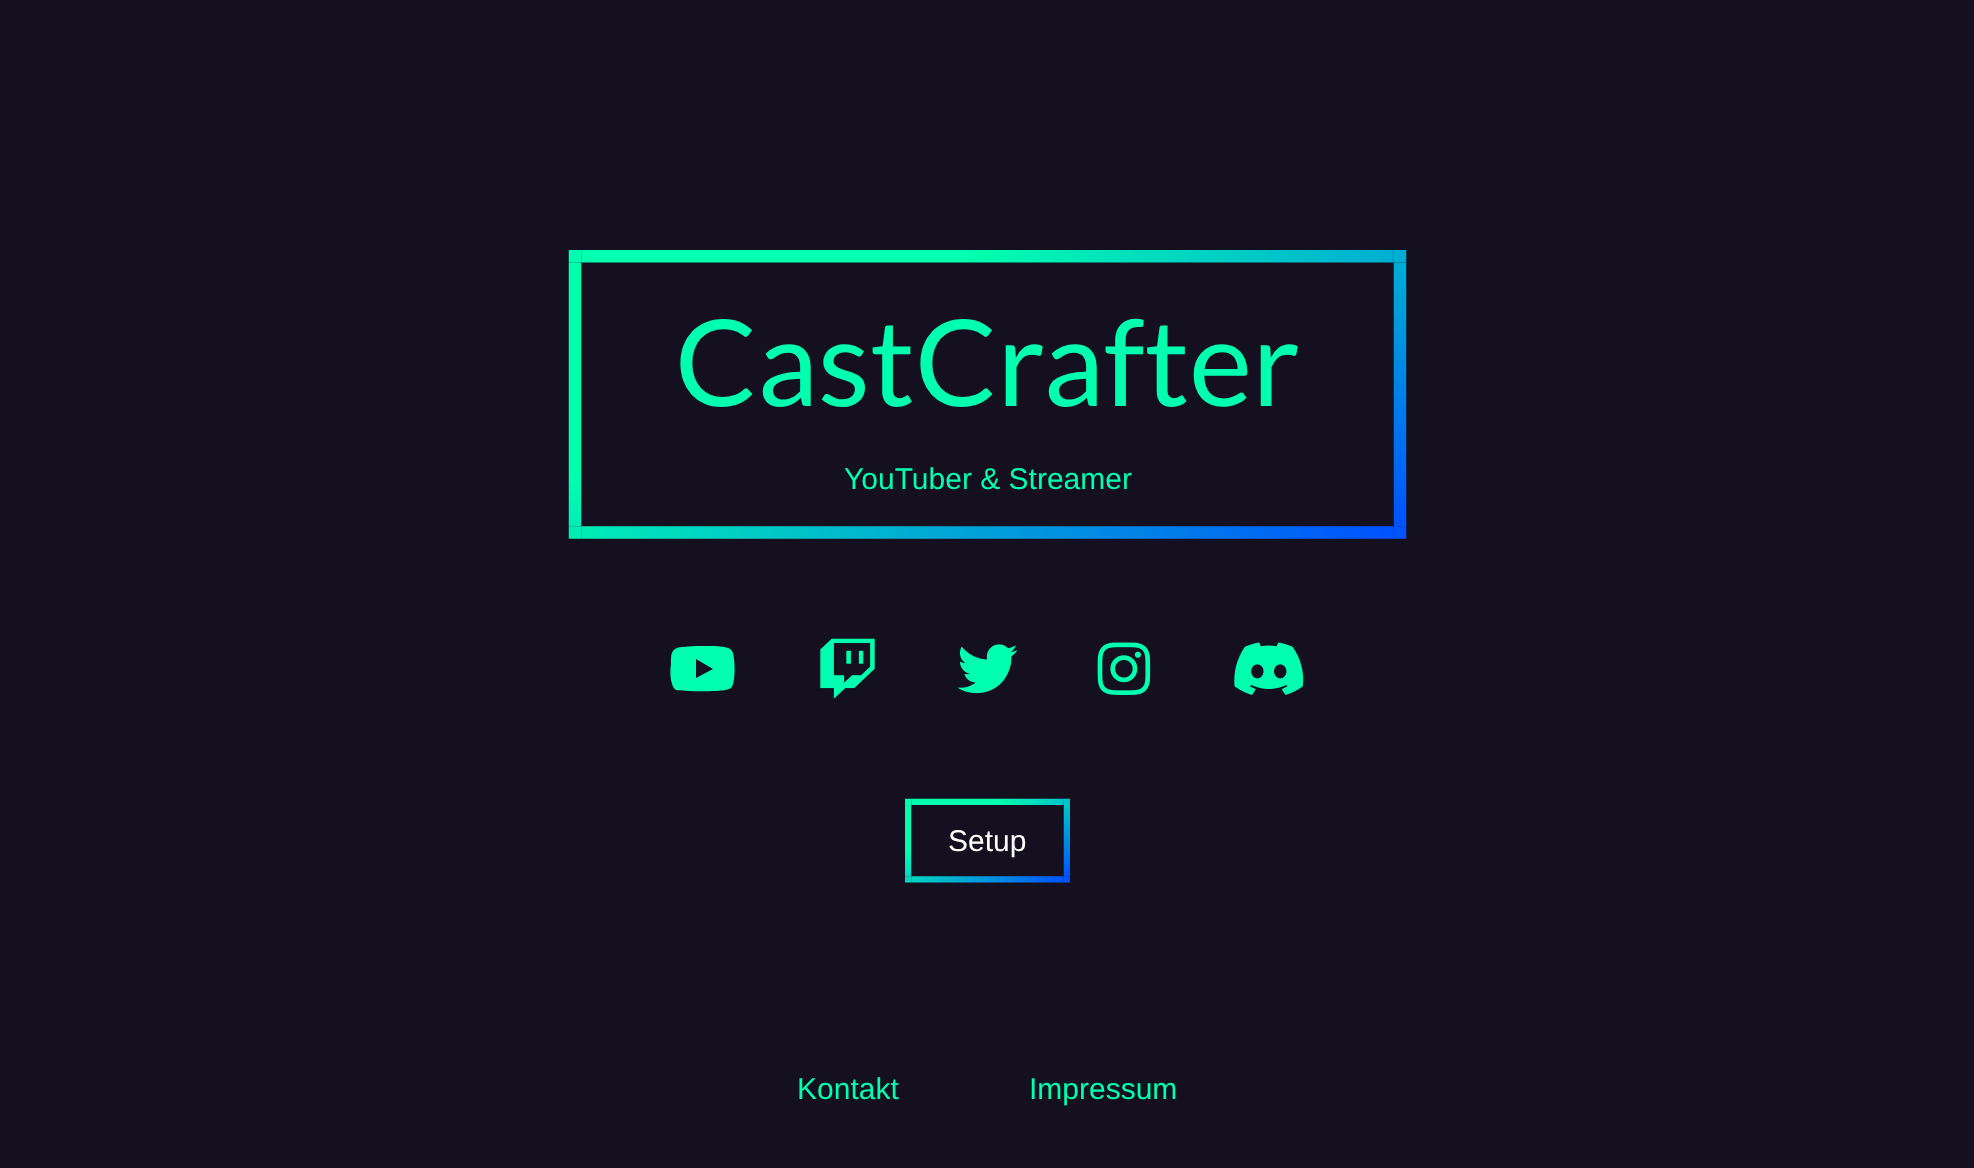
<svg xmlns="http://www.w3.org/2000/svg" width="1974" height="1168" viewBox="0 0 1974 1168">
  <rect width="100%" height="100%" fill="#141020"/>
  <image x="568" y="250" width="839" height="289" href="img/1.png"/>
  <path d="M733 653C735 661 736 683 731 688C726 693 681 691 676 690C674 689 673 687 672 684C670 678 670 670 671 664C671 654 671 648 682 647L696 646H715C721 647 731 646 733 653ZM696 678L713 669L696 659Z" fill="#00ffae"/>
  <image x="820" y="638" width="55" height="61" href="img/2.png"/>
  <image x="957" y="644" width="61" height="50" href="img/3.png"/>
  <image x="1097" y="642" width="54" height="53" href="img/4.png"/>
  <image x="1234" y="642" width="70" height="53" href="img/5.png"/>
  <image x="905" y="798" width="165" height="85" href="img/6.png"/>
  <text x="675" y="406" font-family="Lato" font-size="120" fill="#00ffae">CastCrafter</text>
  <text x="844" y="489" font-family="Liberation Sans" font-size="30" fill="#00ffae">YouTuber &amp; Streamer</text>
  <text x="948" y="851" font-family="Liberation Sans" font-size="30" fill="#fff">Setup</text>
  <g font-family="Liberation Sans" font-size="30" fill="#00ffae">
    <text x="797" y="1099">Kontakt</text>
    <text x="1029" y="1099">Impressum</text>
  </g>
</svg>
